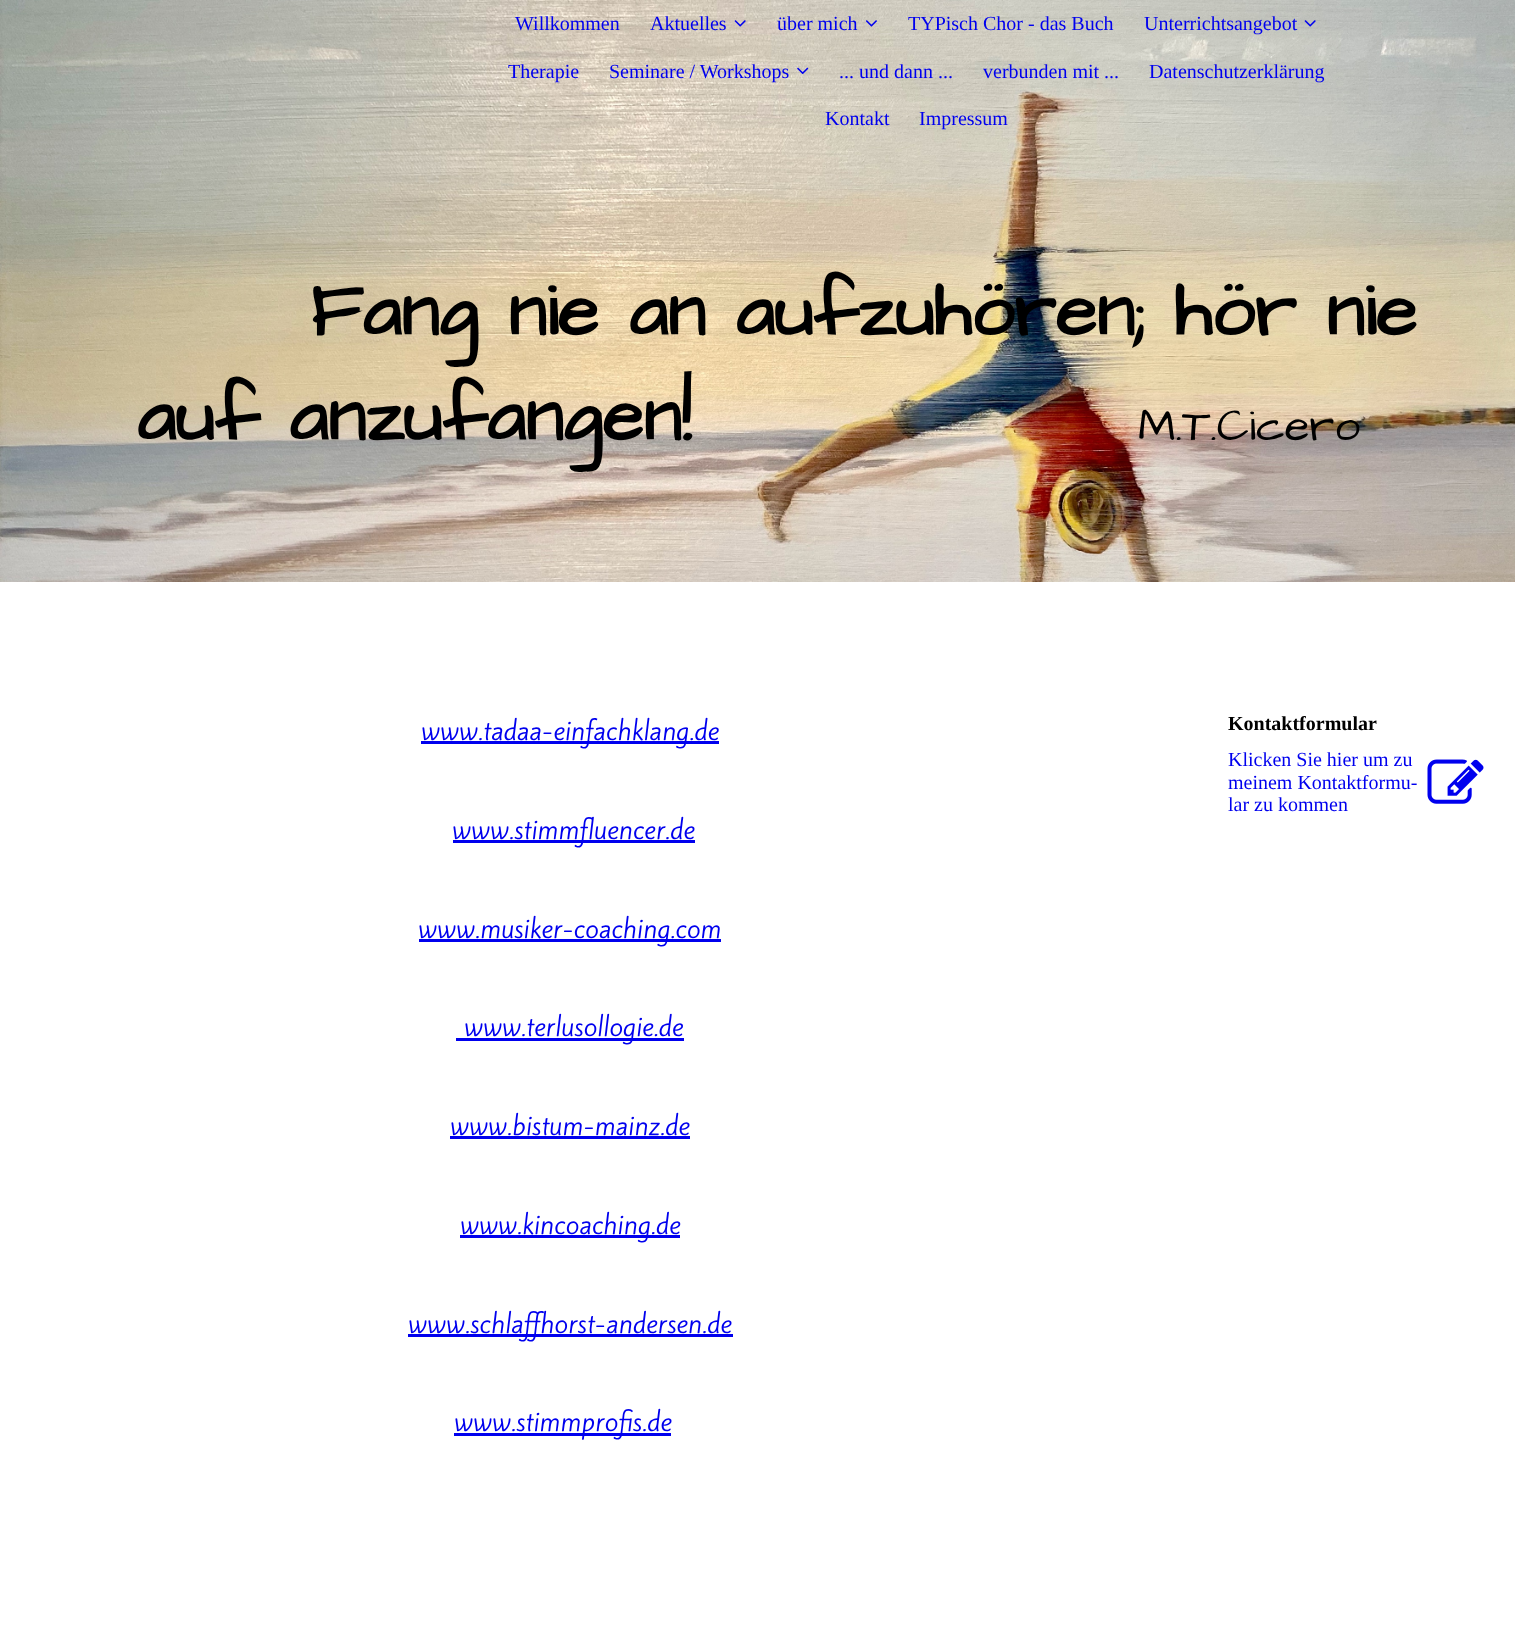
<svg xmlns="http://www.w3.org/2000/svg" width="1515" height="1638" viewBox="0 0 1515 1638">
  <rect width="100%" height="100%" fill="#fff"/>
  <image x="0" y="0" width="1515" height="582" href="img/5.png"/>
  <image x="734" y="20" width="12" height="7" href="img/1.png"/>
  <image x="865" y="20" width="12" height="7" href="img/2.png"/>
  <image x="1304" y="20" width="12" height="7" href="img/3.png"/>
  <image x="797" y="67" width="12" height="8" href="img/4.png"/>
  <path d="M421 741h298v3H421z" fill="#00e"/>
  <path d="M453 840h242v3H453z" fill="#00e"/>
  <path d="M419 939h302v3H419z" fill="#00e"/>
  <path d="M456 1038h228v3H456z" fill="#00e"/>
  <path d="M450 1136h240v3H450z" fill="#00e"/>
  <path d="M460 1235h220v3H460z" fill="#00e"/>
  <path d="M408 1334h325v3H408z" fill="#00e"/>
  <path d="M454 1433h217v3H454z" fill="#00e"/>
  <image x="1427" y="759" width="57" height="45" href="img/6.png"/>
  <g font-family="Liberation Serif" font-size="20" fill="#00e">
    <text x="515" y="30">Willkommen</text>
    <text x="650" y="30">Aktuelles</text>
    <text x="777" y="30">über mich</text>
    <text x="908" y="30">TYPisch Chor - das Buch</text>
    <text x="1144" y="30">Unterrichtsangebot</text>
    <text x="508" y="78">Therapie</text>
    <text x="609" y="78">Seminare / Workshops</text>
    <text x="839" y="78">... und dann ...</text>
    <text x="983" y="78">verbunden mit ...</text>
    <text x="1149" y="78">Datenschutzerklärung</text>
    <text x="825" y="125">Kontakt</text>
    <text x="919" y="125">Impressum</text>
  </g>
  <g font-family="Architects Daughter" font-size="75.75" font-weight="bold" fill="#000">
    <text x="310" y="335">Fang nie an aufzuhören; hör nie</text>
    <text x="137" y="440">auf anzufangen!</text>
  </g>
  <text x="1138" y="440" font-family="Architects Daughter" font-size="45.5" fill="#000">M.T.Cicero</text>
  <g font-family="Kite One" font-size="25" fill="#00e">
    <text x="421" y="740">www.tadaa-einfachklang.de</text>
    <text x="452" y="839">www.stimmfluencer.de</text>
    <text x="418" y="938">www.musiker-coaching.com</text>
    <text x="464" y="1036">www.terlusollogie.de</text>
    <text x="450" y="1135">www.bistum-mainz.de</text>
    <text x="460" y="1234">www.kincoaching.de</text>
    <text x="408" y="1333">www.schlaffhorst-andersen.de</text>
    <text x="454" y="1431">www.stimmprofis.de</text>
  </g>
  <text x="1228" y="730" font-family="Liberation Serif" font-size="20" font-weight="bold" fill="#000">Kontaktformular</text>
  <g font-family="Liberation Serif" font-size="20" fill="#00e">
    <text x="1228" y="766">Klicken Sie hier um zu</text>
    <text x="1228" y="789">meinem Kontaktformu-</text>
    <text x="1228" y="811">lar zu kommen</text>
  </g>
</svg>
